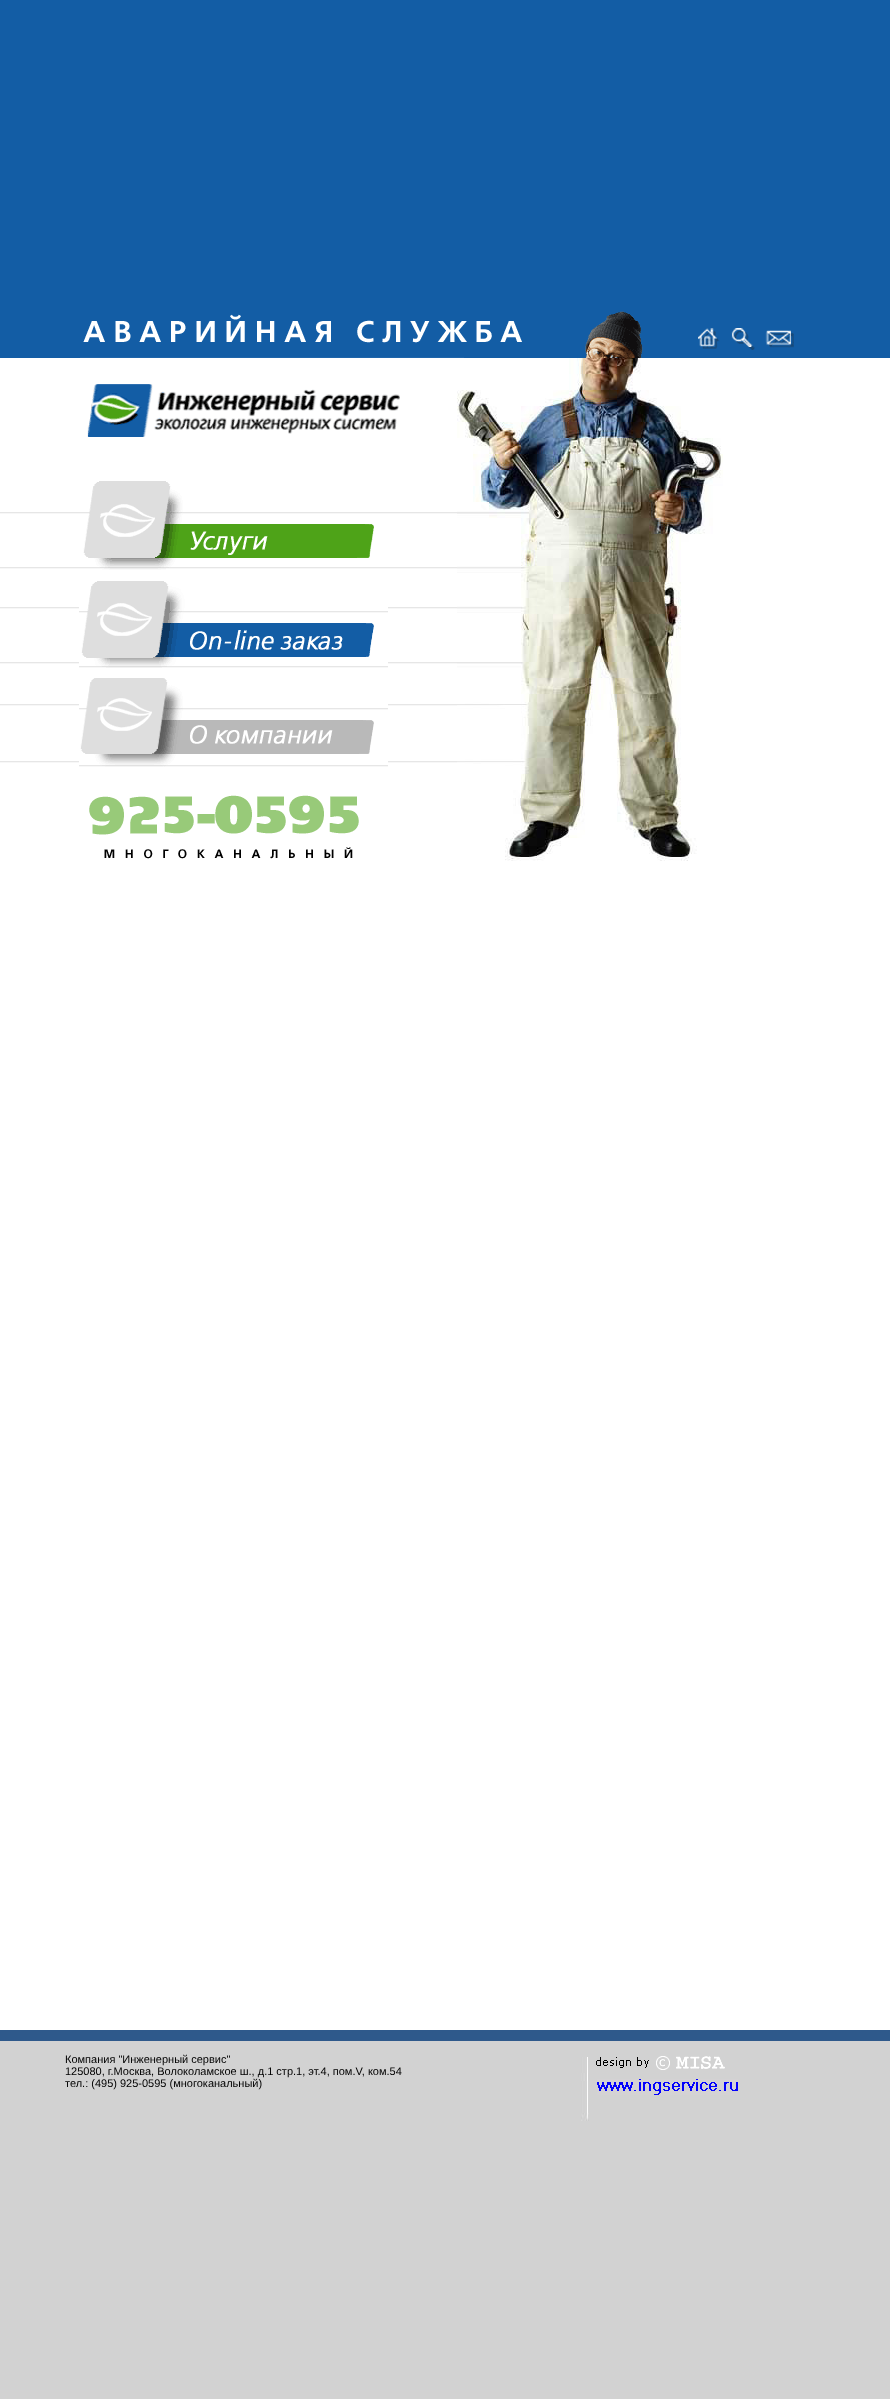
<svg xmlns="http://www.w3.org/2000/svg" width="890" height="2399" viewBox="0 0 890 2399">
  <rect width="100%" height="100%" fill="#fff"/>
  <path d="M0 0h890v358H0z" fill="#135da5"/>
  <image x="80" y="314" width="384" height="44" href="img/1.png"/>
  <image x="464" y="321" width="58" height="21" href="img/2.png"/>
  <image x="585" y="311" width="58" height="47" href="img/3.png"/>
  <image x="698" y="328" width="22" height="21" href="img/4.png"/>
  <image x="731" y="328" width="24" height="22" href="img/5.png"/>
  <image x="765" y="330" width="29" height="18" href="img/6.png"/>
  <image x="0" y="512" width="65" height="251" href="img/7.png"/>
  <image x="87" y="384" width="313" height="53" href="img/8.png"/>
  <image x="457" y="358" width="266" height="503" href="img/9.png"/>
  <image x="65" y="512" width="14" height="251" href="img/10.png"/>
  <image x="79" y="512" width="378" height="251" href="img/11.png"/>
  <image x="83" y="481" width="291" height="89" href="img/12.png"/>
  <image x="79" y="581" width="309" height="87" href="img/13.png"/>
  <image x="79" y="678" width="309" height="89" href="img/14.png"/>
  <image x="89" y="795" width="270" height="64" href="img/15.png"/>
  <path d="M0 2030h890v11H0z" fill="#2e598b"/>
  <path d="M0 2041h890v358H0z" fill="#d2d2d2"/>
  <image x="581" y="2057" width="8" height="64" href="img/16.png"/>
  <image x="596" y="2056" width="129" height="14" href="img/17.png"/>
  <image x="597" y="2079" width="141" height="16" href="img/18.png"/>
  <g font-family="Liberation Sans" font-size="11" fill="#000">
    <text x="65" y="2063">Компания "Инженерный сервис"</text>
    <text x="65" y="2075">125080, г.Москва, Волоколамское ш., д.1 стр.1, эт.4, пом.V, ком.54</text>
    <text x="65" y="2087">тел.: (495) 925-0595 (многоканальный)</text>
  </g>
</svg>
